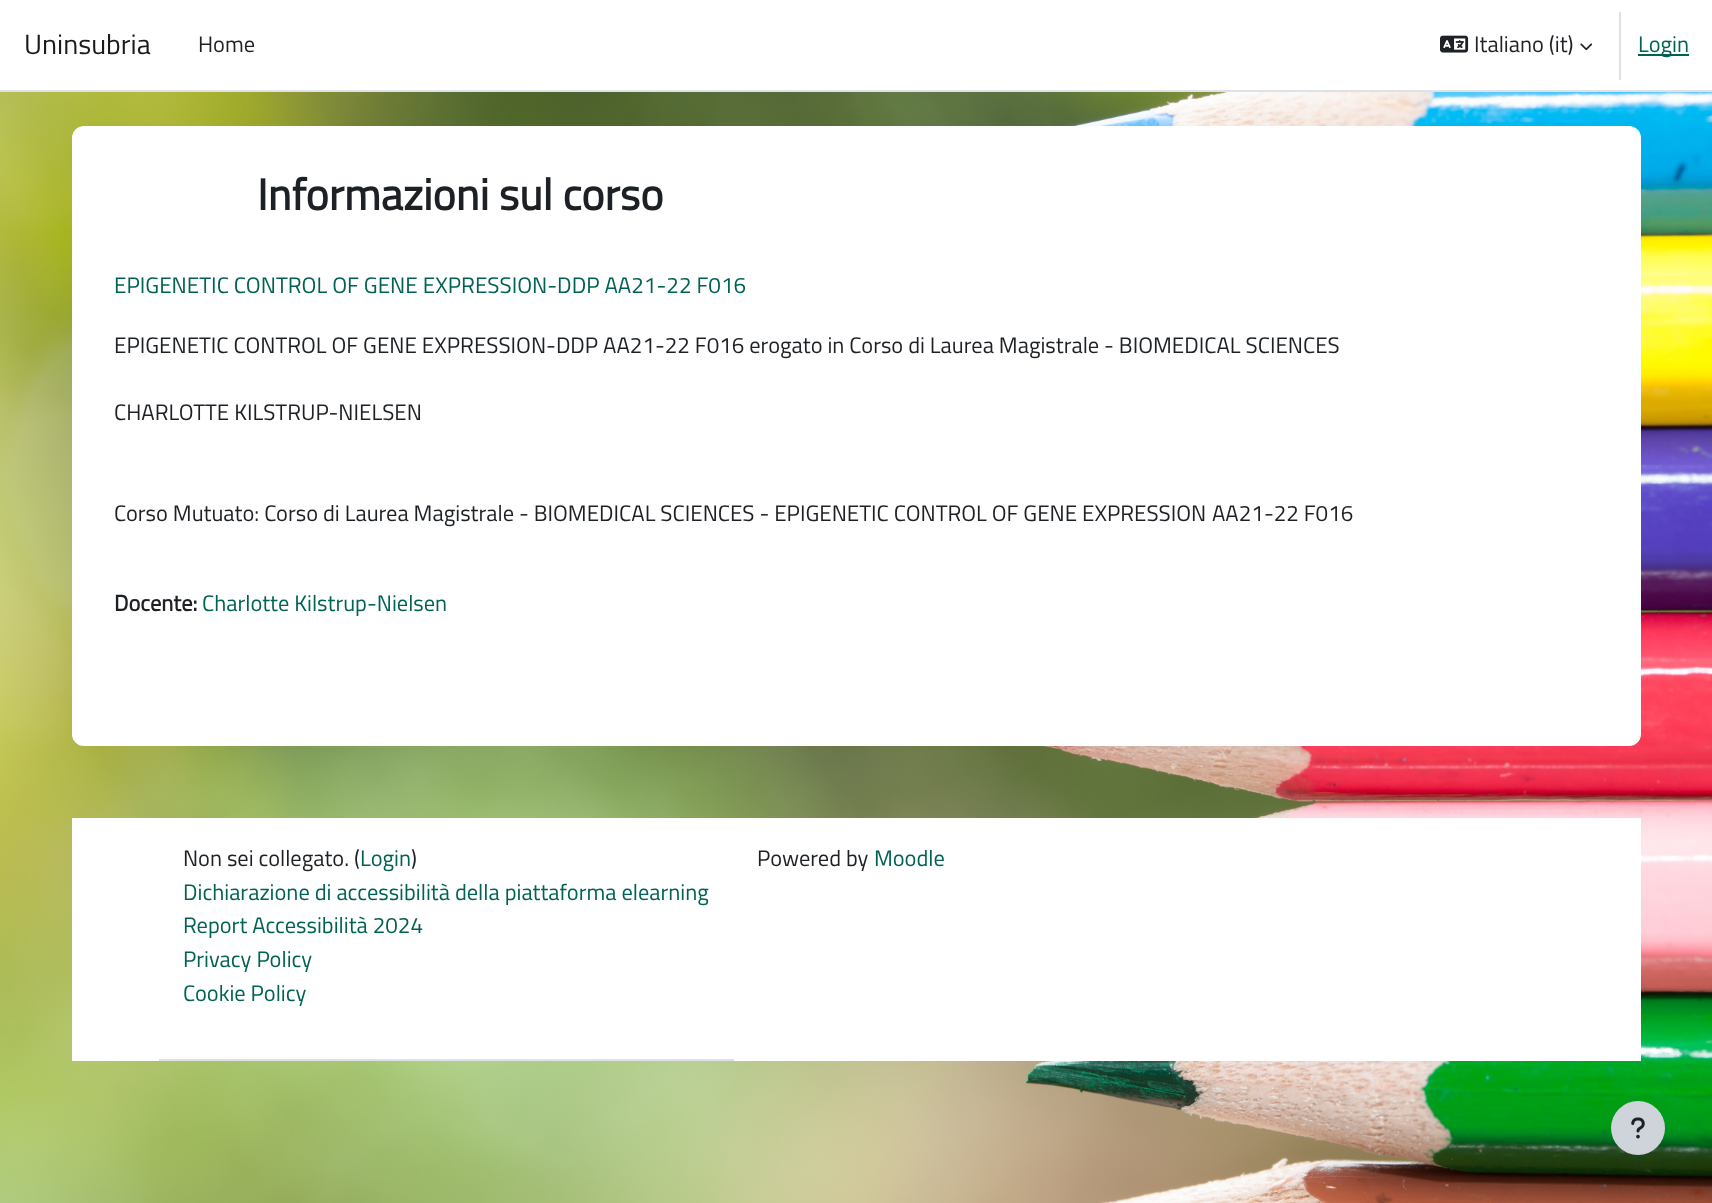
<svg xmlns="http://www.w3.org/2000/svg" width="1712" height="1203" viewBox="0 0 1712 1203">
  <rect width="100%" height="100%" fill="#fff"/>
  <image x="0" y="92" width="1712" height="1111" href="img/1.png"/>
  <path d="M0 90h1712v2H0z" fill="#dee2e6"/>
  <image x="1440" y="35" width="29" height="18" href="img/2.png"/>
  <image x="1580" y="43" width="13" height="8" href="img/3.png"/>
  <path d="M1619 12h2v68H1619z" fill="#dee2e6"/>
  <path d="M1638 54h51v2H1638z" fill="#006254"/>
  <rect x="72" y="126" width="1569" height="620" rx="12" fill="#fff"/>
  <path d="M72 818h1569v243H72z" fill="#fff"/>
  <path d="M159 1059h575v2H159z" fill="#dee2e6"/>
  <circle cx="1638" cy="1128" r="27" fill="#ced4da"/>
  <image x="1631" y="1117" width="14" height="22" href="img/4.png"/>
  <text x="24" y="54" font-family="Titillium Web" font-size="28" fill="#1a1a1a">Uninsubria</text>
  <g font-family="Titillium Web" font-size="22.45" fill="#1d2125">
    <text x="198" y="52">Home</text>
    <text x="1474" y="52">Italiano (it)</text>
  </g>
  <text x="1638" y="52" font-family="Titillium Web" font-size="22.45" fill="#006254">Login</text>
  <text x="257" y="210" font-family="Titillium Web" font-size="44" font-weight="bold" fill="#1d2125">Informazioni sul corso</text>
  <text x="114" y="293" font-family="Titillium Web" font-size="22.5" fill="#006254">EPIGENETIC CONTROL OF GENE EXPRESSION-DDP AA21-22 F016</text>
  <g font-family="Titillium Web" font-size="22.45" fill="#1d2125">
    <text x="114" y="353">EPIGENETIC CONTROL OF GENE EXPRESSION-DDP AA21-22 F016 erogato in Corso di Laurea Magistrale - BIOMEDICAL SCIENCES</text>
    <text x="114" y="420">CHARLOTTE KILSTRUP-NIELSEN</text>
    <text x="114" y="521">Corso Mutuato: Corso di Laurea Magistrale - BIOMEDICAL SCIENCES - EPIGENETIC CONTROL OF GENE EXPRESSION</text>
    <text x="1212" y="521">AA21-22 F016</text>
  </g>
  <text x="114" y="611" font-family="Titillium Web" font-size="22.45" font-weight="bold" fill="#1d2125">Docente:</text>
  <text x="202" y="611" font-family="Titillium Web" font-size="22.45" fill="#006254">Charlotte Kilstrup-Nielsen</text>
  <text x="183" y="866" font-family="Titillium Web" font-size="22.45" fill="#1d2125">Non sei collegato. (</text>
  <text x="360" y="866" font-family="Titillium Web" font-size="22.45" fill="#006254">Login</text>
  <text x="411" y="866" font-family="Titillium Web" font-size="22.45" fill="#1d2125">)</text>
  <g font-family="Titillium Web" font-size="22.45" fill="#006254">
    <text x="183" y="900">Dichiarazione di accessibilità della piattaforma elearning</text>
    <text x="183" y="933">Report Accessibilità 2024</text>
    <text x="183" y="967">Privacy Policy</text>
    <text x="183" y="1001">Cookie Policy</text>
  </g>
  <text x="757" y="866" font-family="Titillium Web" font-size="22.45" fill="#1d2125">Powered by</text>
  <text x="874" y="866" font-family="Titillium Web" font-size="22.45" fill="#006254">Moodle</text>
</svg>
